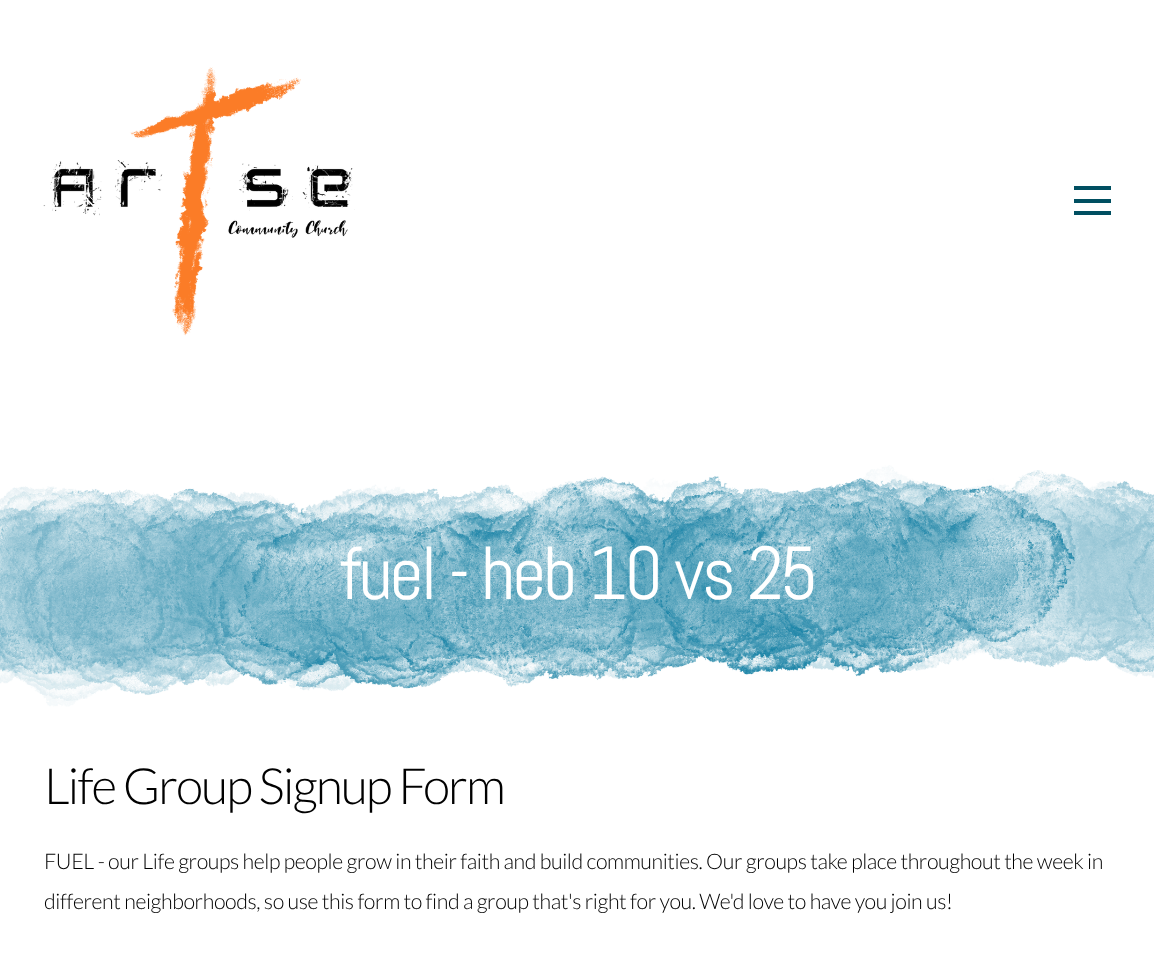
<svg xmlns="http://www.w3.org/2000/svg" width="1154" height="960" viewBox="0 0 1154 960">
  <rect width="100%" height="100%" fill="#fff"/>
  <image x="43" y="67" width="312" height="269" href="img/1.png"/>
  <path d="M1074 186h37v4H1074z" fill="#004f61"/>
  <path d="M1074 199h37v4H1074z" fill="#004f61"/>
  <path d="M1074 211h37v4H1074z" fill="#004f61"/>
  <image x="0" y="465" width="1154" height="242" href="img/2.png"/>
  <text x="340" y="599" font-family="Abel" font-size="75" letter-spacing="-3" fill="#fff">fuel - heb 10 vs 25</text>
  <text x="44" y="804" font-family="Lato" font-size="50" font-weight="300" letter-spacing="-2" fill="#000">Life Group Signup Form</text>
  <g font-family="Lato" font-size="21.4" font-weight="300" letter-spacing="-0.4" fill="#000">
    <text x="44" y="869">FUEL - our Life groups help people grow in their faith and build communities. Our groups take place throughout the week in</text>
    <text x="44" y="909">different neighborhoods, so use this form to find a group that's right for you. We'd love to have you join us!</text>
  </g>
</svg>
